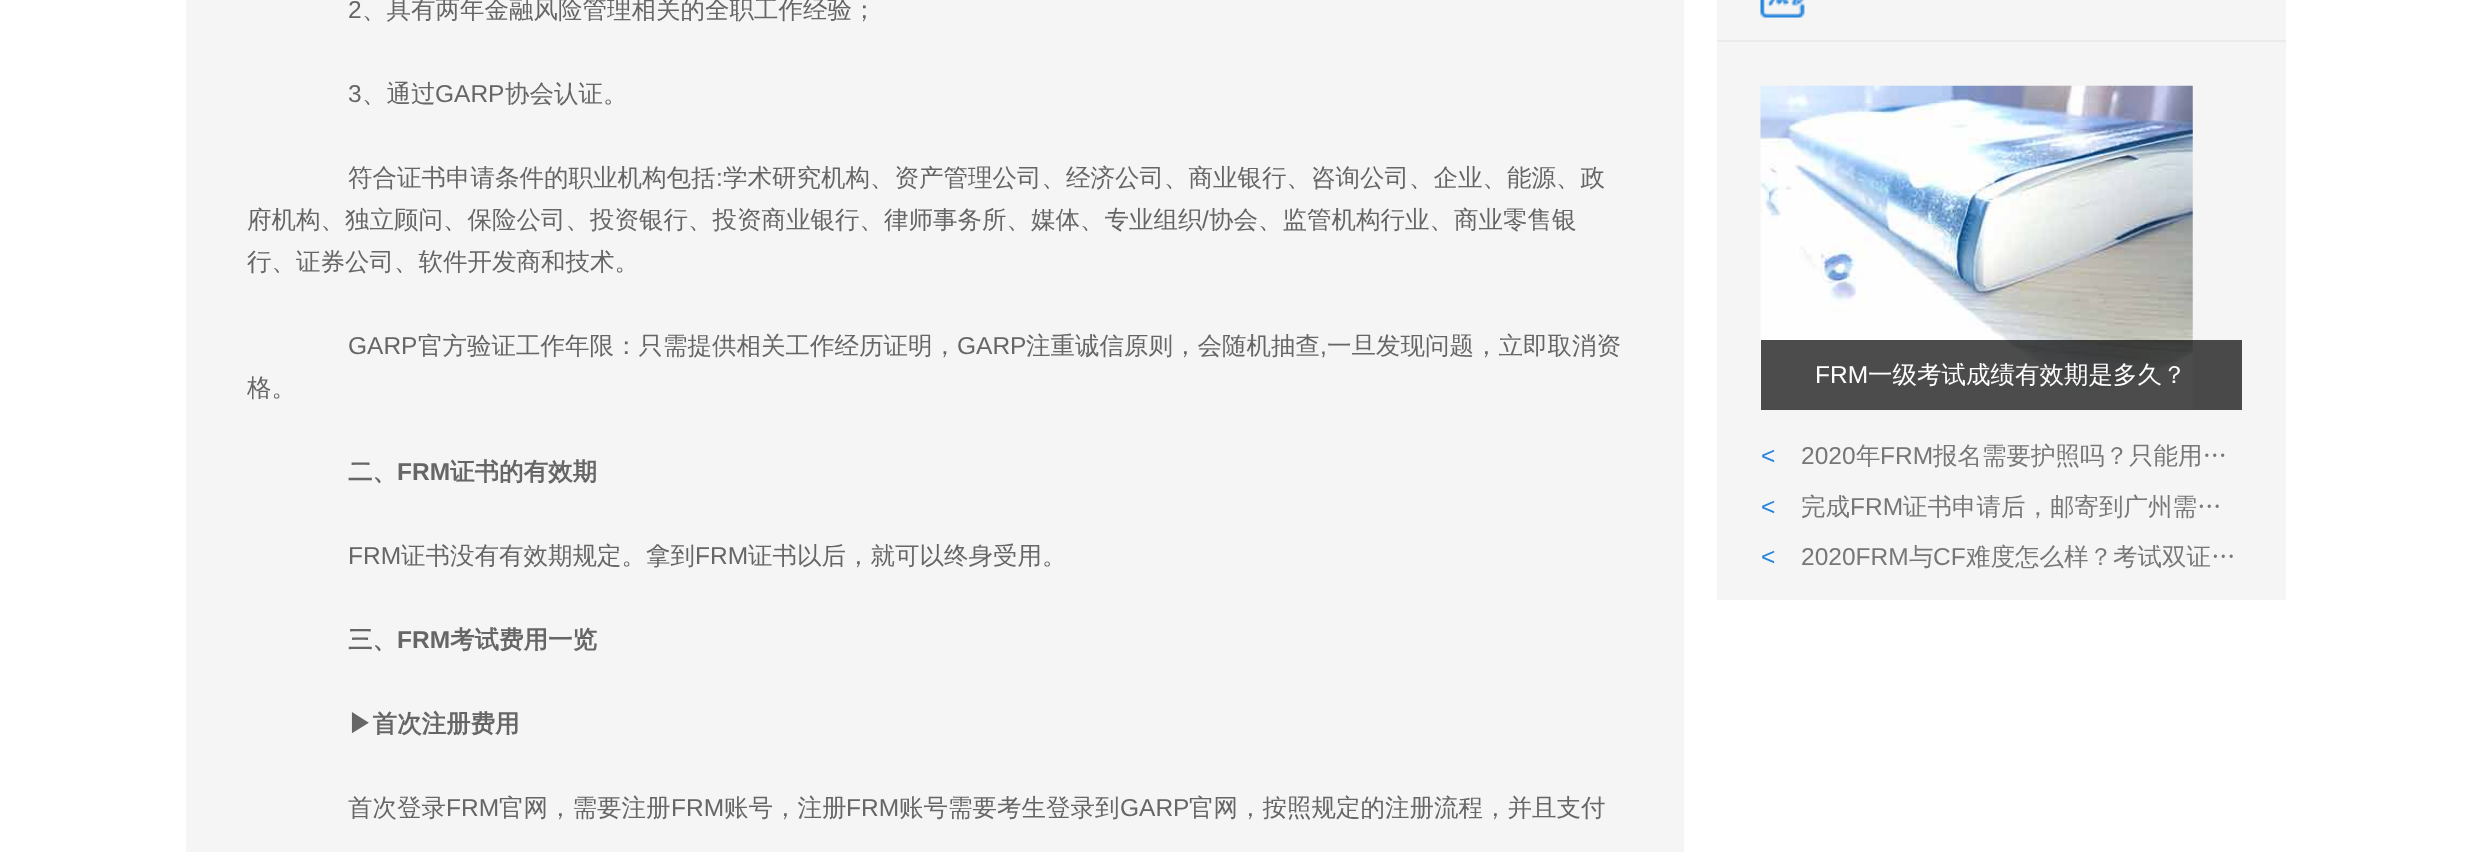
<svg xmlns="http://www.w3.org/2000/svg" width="2470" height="852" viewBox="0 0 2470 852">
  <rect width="100%" height="100%" fill="#fff"/>
  <path d="M186 0h1498v852H186z" fill="#f5f5f5"/>
  <path d="M1717 0h569v600H1717z" fill="#f5f5f5"/>
  <path d="M1717 40h569v2H1717z" fill="#ebebeb"/>
  <image x="1760" y="0" width="45" height="18" href="img/1.png"/>
  <image x="1760" y="85" width="433" height="325" href="img/2.png"/>
  <path d="M1761 340h481v70H1761z" fill="#000000b3"/>
  <text x="348" y="18" font-family="Liberation Sans" font-size="24.5" fill="#666">2</text>
  <text x="362" y="18" font-family="WenQuanYi Zen Hei" font-size="24.5" font-weight="500" fill="#666">、具有两年金融风险管理相关的全职工作经验；</text>
  <text x="348" y="102" font-family="Liberation Sans" font-size="24.5" fill="#666">3</text>
  <text x="362" y="102" font-family="WenQuanYi Zen Hei" font-size="24.5" font-weight="500" fill="#666">、通过</text>
  <text x="435" y="102" font-family="Liberation Sans" font-size="24.5" fill="#666">GARP</text>
  <g font-family="WenQuanYi Zen Hei" font-size="24.5" font-weight="500" fill="#666">
    <text x="505" y="102">协会认证。</text>
    <text x="348" y="186">符合证书申请条件的职业机构包括</text>
  </g>
  <text x="716" y="186" font-family="Liberation Sans" font-size="24.5" fill="#666">:</text>
  <g font-family="WenQuanYi Zen Hei" font-size="24.5" font-weight="500" fill="#666">
    <text x="723" y="186">学术研究机构、资产管理公司、经济公司、商业银行、咨询公司、企业、能源、政</text>
    <text x="247" y="228">府机构、独立顾问、保险公司、投资银行、投资商业银行、律师事务所、媒体、专业组织</text>
  </g>
  <text x="1202" y="228" font-family="Liberation Sans" font-size="24.5" fill="#666">/</text>
  <g font-family="WenQuanYi Zen Hei" font-size="24.5" font-weight="500" fill="#666">
    <text x="1209" y="228">协会、监管机构行业、商业零售银</text>
    <text x="247" y="270">行、证券公司、软件开发商和技术。</text>
  </g>
  <text x="348" y="354" font-family="Liberation Sans" font-size="24.5" fill="#666">GARP</text>
  <text x="418" y="354" font-family="WenQuanYi Zen Hei" font-size="24.5" font-weight="500" fill="#666">官方验证工作年限：只需提供相关工作经历证明，</text>
  <text x="957" y="354" font-family="Liberation Sans" font-size="24.5" fill="#666">GARP</text>
  <text x="1026" y="354" font-family="WenQuanYi Zen Hei" font-size="24.5" font-weight="500" fill="#666">注重诚信原则，会随机抽查</text>
  <text x="1320" y="354" font-family="Liberation Sans" font-size="24.5" fill="#666">,</text>
  <g font-family="WenQuanYi Zen Hei" font-size="24.5" font-weight="500" fill="#666">
    <text x="1327" y="354">一旦发现问题，立即取消资</text>
    <text x="247" y="396">格。</text>
  </g>
  <text x="348" y="480" font-family="WenQuanYi Zen Hei" font-size="24.5" font-weight="bold" fill="#666">二、</text>
  <text x="397" y="480" font-family="Liberation Sans" font-size="24.5" font-weight="bold" fill="#666">FRM</text>
  <text x="450" y="480" font-family="WenQuanYi Zen Hei" font-size="24.5" font-weight="bold" fill="#666">证书的有效期</text>
  <text x="348" y="564" font-family="Liberation Sans" font-size="24.5" fill="#666">FRM</text>
  <text x="401" y="564" font-family="WenQuanYi Zen Hei" font-size="24.5" font-weight="500" fill="#666">证书没有有效期规定。拿到</text>
  <text x="695" y="564" font-family="Liberation Sans" font-size="24.5" fill="#666">FRM</text>
  <text x="748" y="564" font-family="WenQuanYi Zen Hei" font-size="24.5" font-weight="500" fill="#666">证书以后，就可以终身受用。</text>
  <text x="348" y="648" font-family="WenQuanYi Zen Hei" font-size="24.5" font-weight="bold" fill="#666">三、</text>
  <text x="397" y="648" font-family="Liberation Sans" font-size="24.5" font-weight="bold" fill="#666">FRM</text>
  <g font-family="WenQuanYi Zen Hei" font-size="24.5" font-weight="bold" fill="#666">
    <text x="450" y="648">考试费用一览</text>
    <text x="348" y="732">▶首次注册费用</text>
  </g>
  <text x="348" y="816" font-family="WenQuanYi Zen Hei" font-size="24.5" font-weight="500" fill="#666">首次登录</text>
  <text x="446" y="816" font-family="Liberation Sans" font-size="24.5" fill="#666">FRM</text>
  <text x="499" y="816" font-family="WenQuanYi Zen Hei" font-size="24.5" font-weight="500" fill="#666">官网，需要注册</text>
  <text x="671" y="816" font-family="Liberation Sans" font-size="24.5" fill="#666">FRM</text>
  <text x="724" y="816" font-family="WenQuanYi Zen Hei" font-size="24.5" font-weight="500" fill="#666">账号，注册</text>
  <text x="846" y="816" font-family="Liberation Sans" font-size="24.5" fill="#666">FRM</text>
  <text x="899" y="816" font-family="WenQuanYi Zen Hei" font-size="24.5" font-weight="500" fill="#666">账号需要考生登录到</text>
  <text x="1120" y="816" font-family="Liberation Sans" font-size="24.5" fill="#666">GARP</text>
  <text x="1189" y="816" font-family="WenQuanYi Zen Hei" font-size="24.5" font-weight="500" fill="#666">官网，按照规定的注册流程，并且支付</text>
  <text x="1815" y="383" font-family="Liberation Sans" font-size="24.5" fill="#fff">FRM</text>
  <text x="1868" y="383" font-family="WenQuanYi Zen Hei" font-size="24.5" font-weight="500" fill="#fff">一级考试成绩有效期是多久？</text>
  <text x="1761" y="464" font-family="Liberation Sans" font-size="24.5" fill="#2483db">&lt;</text>
  <text x="1801" y="464" font-family="Liberation Sans" font-size="24.5" fill="#777">2020</text>
  <text x="1856" y="464" font-family="WenQuanYi Zen Hei" font-size="24.5" font-weight="500" fill="#777">年</text>
  <text x="1880" y="464" font-family="Liberation Sans" font-size="24.5" fill="#777">FRM</text>
  <text x="1933" y="464" font-family="WenQuanYi Zen Hei" font-size="24.5" font-weight="500" fill="#777">报名需要护照吗？只能用…</text>
  <text x="1761" y="515" font-family="Liberation Sans" font-size="24.5" fill="#2483db">&lt;</text>
  <text x="1801" y="515" font-family="WenQuanYi Zen Hei" font-size="24.5" font-weight="500" fill="#777">完成</text>
  <text x="1850" y="515" font-family="Liberation Sans" font-size="24.5" fill="#777">FRM</text>
  <text x="1903" y="515" font-family="WenQuanYi Zen Hei" font-size="24.5" font-weight="500" fill="#777">证书申请后，邮寄到广州需…</text>
  <text x="1761" y="565" font-family="Liberation Sans" font-size="24.5" fill="#2483db">&lt;</text>
  <text x="1801" y="565" font-family="Liberation Sans" font-size="24.5" fill="#777">2020FRM</text>
  <text x="1909" y="565" font-family="WenQuanYi Zen Hei" font-size="24.5" font-weight="500" fill="#777">与</text>
  <text x="1933" y="565" font-family="Liberation Sans" font-size="24.5" fill="#777">CF</text>
  <text x="1966" y="565" font-family="WenQuanYi Zen Hei" font-size="24.5" font-weight="500" fill="#777">难度怎么样？考试双证…</text>
</svg>
